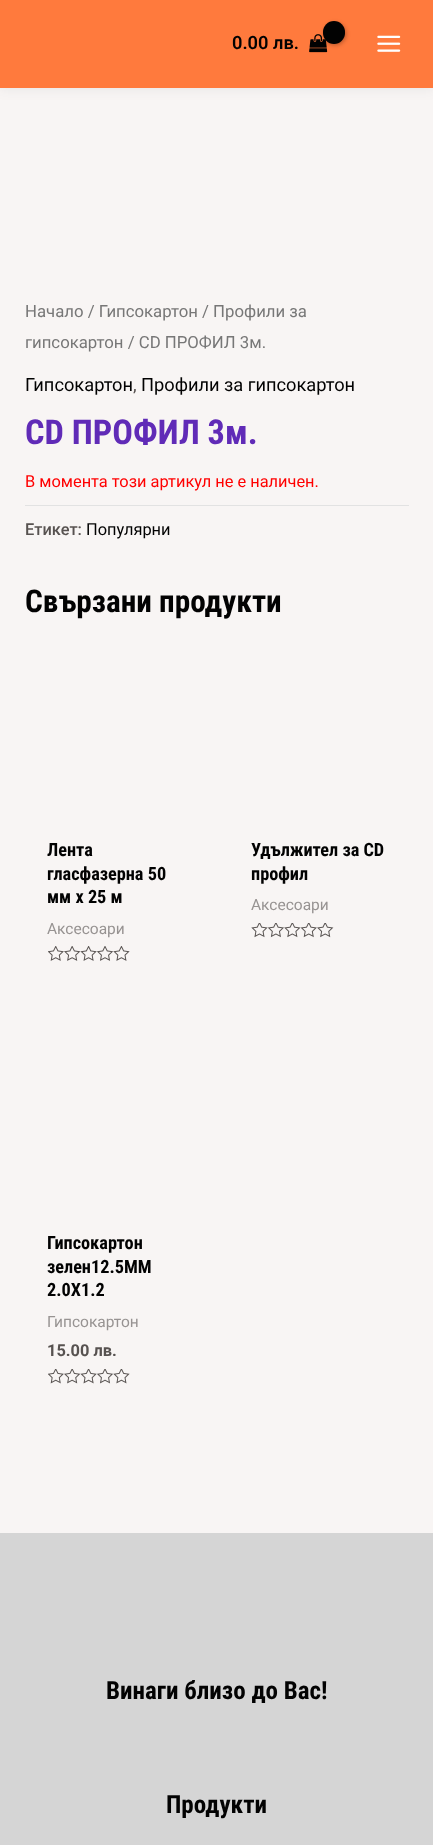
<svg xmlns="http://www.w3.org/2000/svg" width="433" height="1845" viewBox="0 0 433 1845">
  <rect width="100%" height="100%" fill="#f8f5f4"/>
  <path d="M0 3h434v87H0z" fill="#24324212" filter="blur(6px)"/>
  <path d="M0 0h433v88H0z" fill="#ff7a3d"/>
  <image x="309" y="34" width="19" height="19" href="img/1.png"/>
  <rect x="324" y="23" width="22" height="22" rx="11" fill="#0000004d" filter="blur(2px)"/>
  <rect x="323" y="21" width="22" height="23" rx="11" fill="#020202"/>
  <image x="377" y="35" width="24" height="17" href="img/2.png"/>
  <path d="M25 505h384v1H25z" fill="#e2e2e2"/>
  <image x="48" y="946" width="82" height="15" href="img/3.png"/>
  <image x="251" y="923" width="83" height="15" href="img/4.png"/>
  <image x="48" y="1369" width="82" height="15" href="img/5.png"/>
  <path d="M0 1533h433v312H0z" fill="#d5d5d5"/>
  <text x="232" y="49" font-family="Roboto" font-size="18.25" font-weight="600" fill="#020202">0.00 лв.</text>
  <g font-family="Roboto" font-size="16.75" fill="#777">
    <text x="25" y="317">Начало / Гипсокартон / Профили за</text>
    <text x="25" y="348">гипсокартон / CD ПРОФИЛ 3м.</text>
  </g>
  <text x="25" y="391" font-family="Roboto" font-size="18.25" fill="#020202">Гипсокартон</text>
  <text x="133" y="391" font-family="Roboto" font-size="18.25" fill="#575250">,</text>
  <text x="141" y="391" font-family="Roboto" font-size="18.25" fill="#020202">Профили за гипсокартон</text>
  <text x="25" y="444" font-family="Roboto Condensed" font-size="34.25" font-weight="bold" fill="#602bb7">CD ПРОФИЛ 3м.</text>
  <text x="25" y="487" font-family="Roboto" font-size="16.4" fill="#f00">В момента този артикул не е наличен.</text>
  <text x="25" y="535" font-family="Roboto" font-size="16.4" font-weight="500" fill="#575250">Етикет:</text>
  <text x="86" y="535" font-family="Roboto" font-size="16.4" fill="#020202">Популярни</text>
  <text x="25" y="612" font-family="Roboto Condensed" font-size="31.25" font-weight="bold" fill="#020202">Свързани продукти</text>
  <g font-family="Roboto Condensed" font-size="18.25" font-weight="bold" fill="#020202">
    <text x="47" y="856">Лента</text>
    <text x="47" y="880">гласфазерна 50</text>
    <text x="47" y="903">мм х 25 м</text>
  </g>
  <text x="47" y="934" font-family="Roboto" font-size="15.5" fill="#979392">Аксесоари</text>
  <g font-family="Roboto Condensed" font-size="18.25" font-weight="bold" fill="#020202">
    <text x="251" y="856">Удължител за CD</text>
    <text x="251" y="880">профил</text>
  </g>
  <text x="251" y="910" font-family="Roboto" font-size="15.5" fill="#979392">Аксесоари</text>
  <g font-family="Roboto Condensed" font-size="18.25" font-weight="bold" fill="#020202">
    <text x="47" y="1249">Гипсокартон</text>
    <text x="47" y="1273">зелен12.5ММ</text>
    <text x="47" y="1296">2.0Х1.2</text>
  </g>
  <text x="47" y="1327" font-family="Roboto" font-size="15.5" fill="#979392">Гипсокартон</text>
  <text x="47" y="1356" font-family="Roboto" font-size="16.4" font-weight="bold" fill="#575250">15.00 лв.</text>
  <g font-family="Roboto Condensed" font-size="25" font-weight="bold" fill="#020202">
    <text x="106" y="1699">Винаги близо до Вас!</text>
    <text x="166" y="1813">Продукти</text>
  </g>
</svg>
